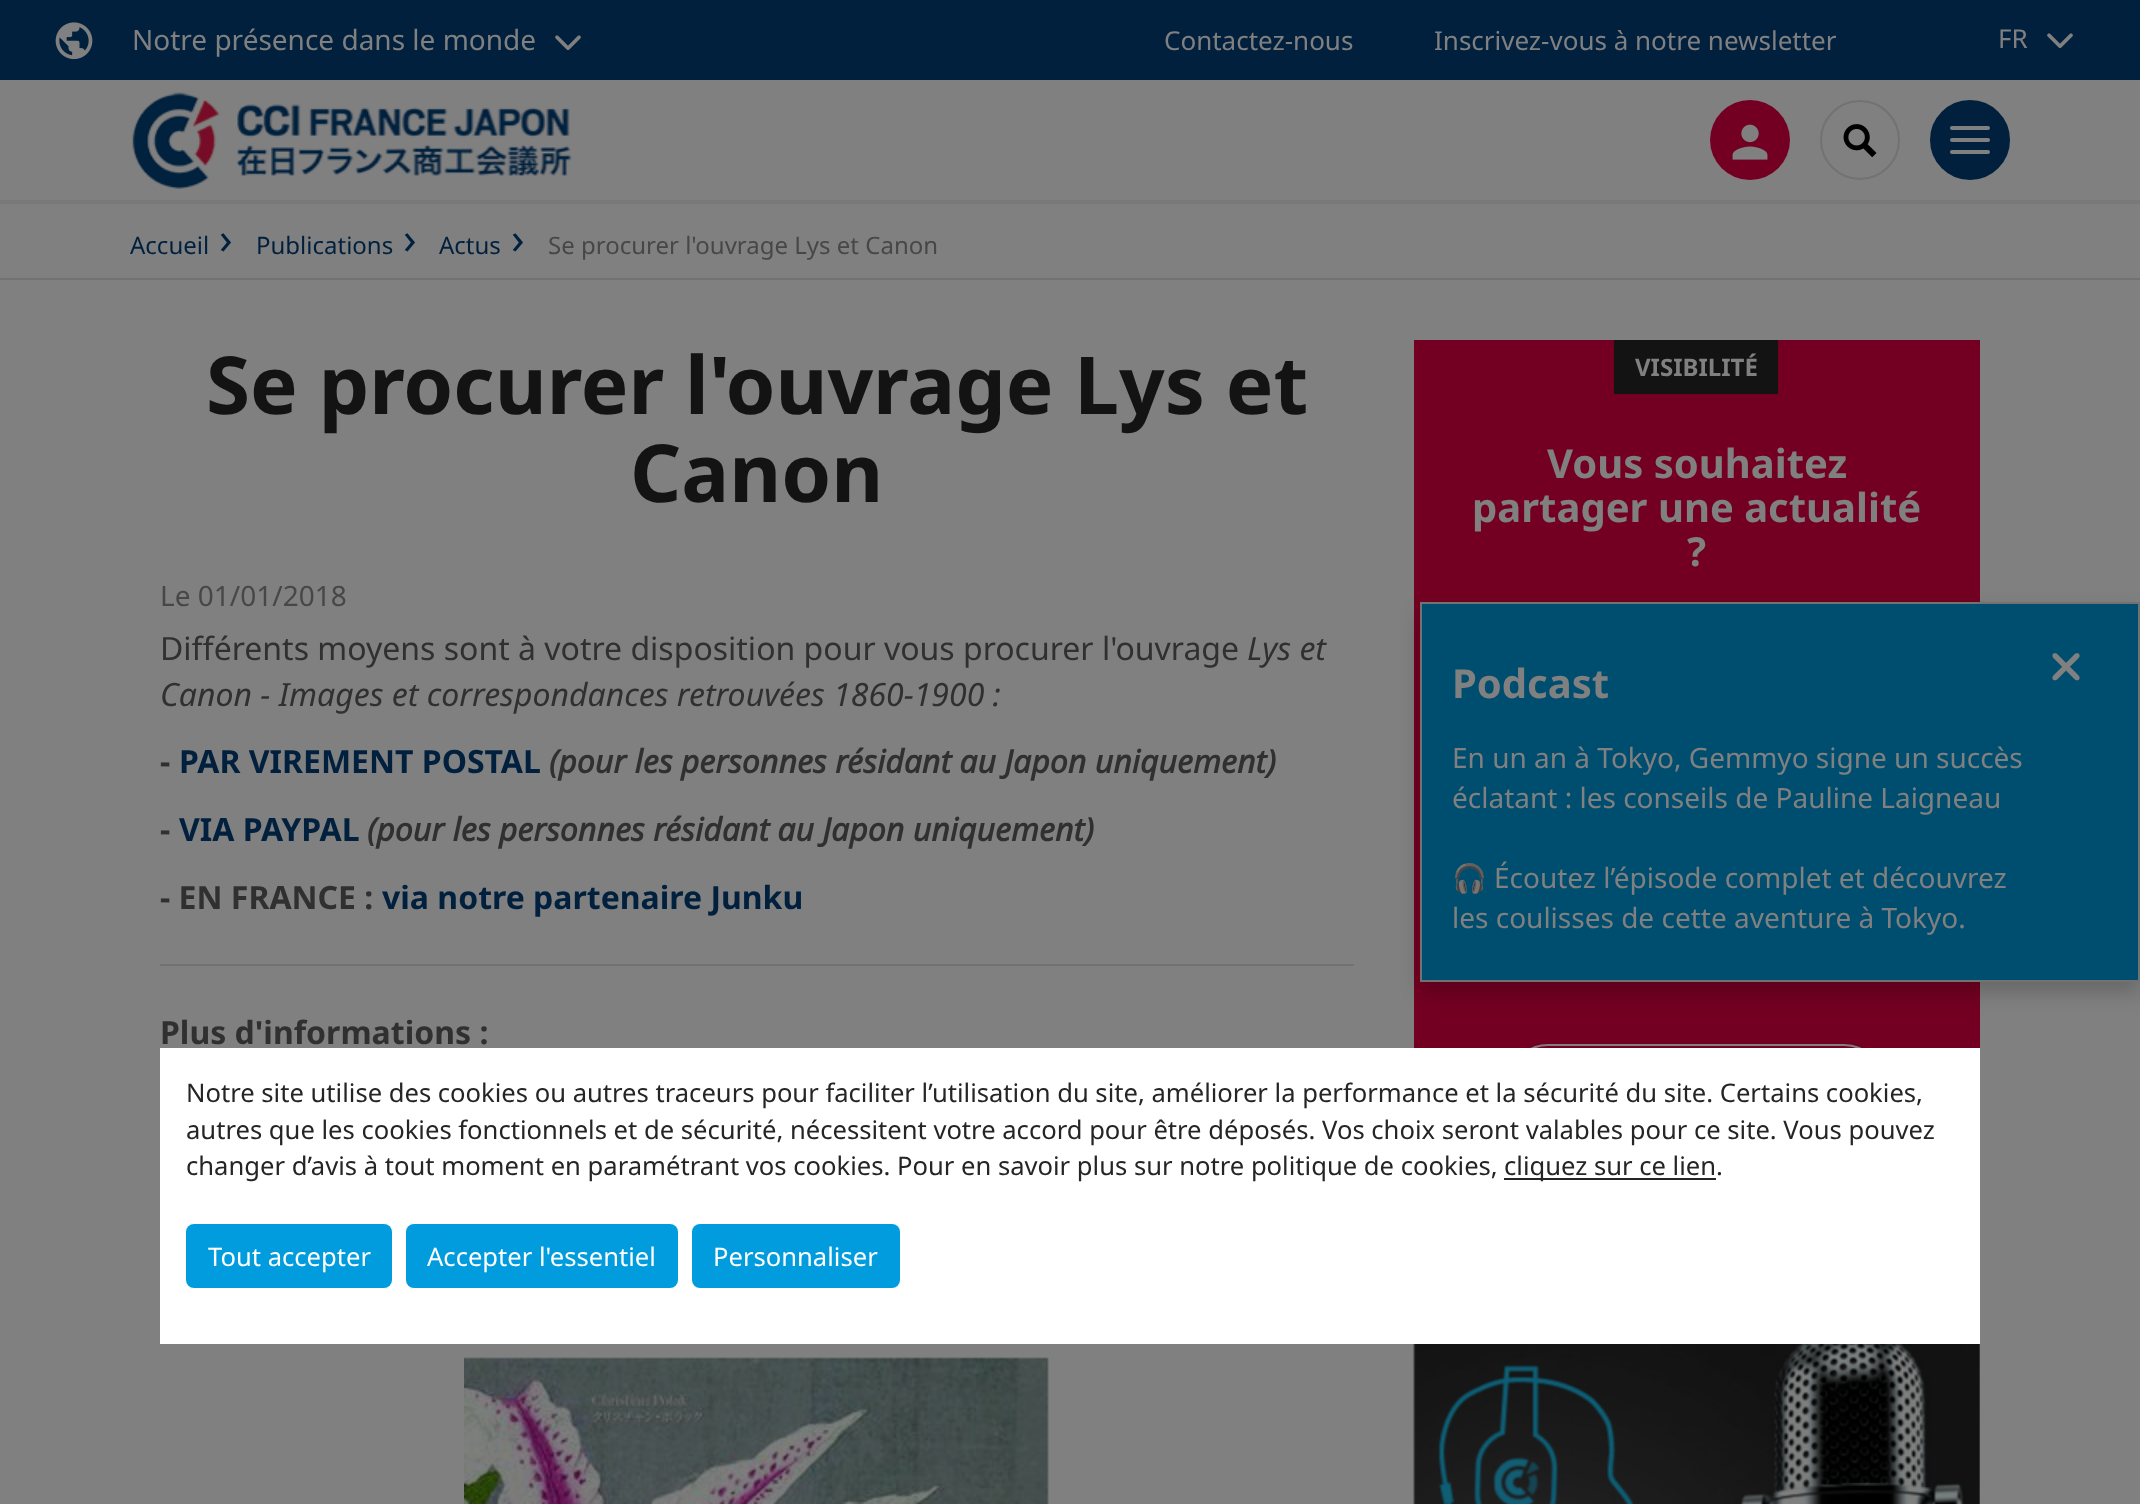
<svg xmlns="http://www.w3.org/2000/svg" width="2140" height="1504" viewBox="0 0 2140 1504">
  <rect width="100%" height="100%" fill="#808080"/>
  <path d="M0 200h2140v4H0z" fill="#797979"/>
  <path d="M0 0h2140v80H0z" fill="#00203d"/>
  <image x="55" y="22" width="38" height="38" href="img/1.png"/>
  <image x="555" y="35" width="26" height="15" href="img/2.png"/>
  <image x="2047" y="33" width="26" height="15" href="img/2.png"/>
  <image x="132" y="92" width="440" height="97" href="img/3.png"/>
  <circle cx="1750" cy="140" r="40" fill="#730023"/>
  <image x="1732" y="124" width="36" height="36" href="img/4.png"/>
  <circle cx="1860" cy="140" r="39" fill="none" stroke="#727272" stroke-width="2"/>
  <image x="1843" y="124" width="34" height="34" href="img/5.png"/>
  <circle cx="1970" cy="140" r="39" fill="#00203d" stroke="#00203d" stroke-width="2"/>
  <rect x="1950" y="126" width="40" height="4" rx="2" fill="#808080"/>
  <rect x="1950" y="138" width="40" height="4" rx="2" fill="#808080"/>
  <rect x="1950" y="150" width="40" height="4" rx="2" fill="#808080"/>
  <path d="M0 278h2140v2H0z" fill="#727272"/>
  <path d="M160 964h1194v2H160z" fill="#727272"/>
  <image x="464" y="1357" width="585" height="147" href="img/6.png"/>
  <path d="M1414 340h566v708H1414z" fill="#730022"/>
  <path d="M1614 340h164v54H1614z" fill="#131313"/>
  <rect x="1509" y="1045" width="374" height="78" rx="39" fill="none" stroke="#808080" stroke-width="2"/>
  <image x="1413" y="1344" width="567" height="160" href="img/7.png"/>
  <path d="M1420 612h720v380H1420z" fill="#00000033" filter="blur(10px)"/>
  <path d="M1421 603h718v378H1421z" fill="#004e6f" stroke="#727272" stroke-width="2"/>
  <image x="2052" y="653" width="28" height="28" href="img/8.png"/>
  <path d="M160 1048h1820v296H160z" fill="#fff"/>
  <path d="M1504 1178h212v2H1504z" fill="#252525"/>
  <rect x="186" y="1224" width="206" height="64" rx="8" fill="#009cde"/>
  <rect x="406" y="1224" width="272" height="64" rx="8" fill="#009cde"/>
  <rect x="692" y="1224" width="208" height="64" rx="8" fill="#009cde"/>
  <text x="132" y="50" font-family="Noto Sans" font-size="28" fill="#808080">Notre présence dans le monde</text>
  <g font-family="Noto Sans" font-size="26" fill="#808080">
    <text x="1164" y="50">Contactez-nous</text>
    <text x="1434" y="50">Inscrivez-vous à notre newsletter</text>
    <text x="1998" y="48">FR</text>
  </g>
  <text x="130" y="254" font-family="Noto Sans" font-size="24" fill="#00203d">Accueil</text>
  <text x="219" y="254" font-family="Noto Sans" font-size="44" fill="#00203d">›</text>
  <text x="256" y="254" font-family="Noto Sans" font-size="24" fill="#00203d">Publications</text>
  <text x="403" y="254" font-family="Noto Sans" font-size="44" fill="#00203d">›</text>
  <text x="439" y="254" font-family="Noto Sans" font-size="24" fill="#00203d">Actus</text>
  <text x="511" y="254" font-family="Noto Sans" font-size="44" fill="#00203d">›</text>
  <text x="548" y="254" font-family="Noto Sans" font-size="24" fill="#474747">Se procurer l'ouvrage Lys et Canon</text>
  <g font-family="Noto Sans" font-size="80" font-weight="bold" fill="#131313">
    <text x="206" y="414">Se procurer l'ouvrage Lys et</text>
    <text x="630" y="502">Canon</text>
  </g>
  <text x="160" y="606" font-family="Noto Sans" font-size="28" fill="#474747">Le 01/01/2018</text>
  <text x="160" y="660" font-family="Noto Sans" font-size="32" fill="#303030">Différents moyens sont à votre disposition pour vous procurer l'ouvrage</text>
  <g font-family="Noto Sans" font-size="32" font-style="italic" fill="#303030">
    <text x="1247" y="660">Lys et</text>
    <text x="160" y="706">Canon - Images et correspondances retrouvées 1860-1900 :</text>
  </g>
  <text x="160" y="773" font-family="Noto Sans" font-size="32" font-weight="bold" fill="#303030">-</text>
  <text x="179" y="773" font-family="Noto Sans" font-size="32" font-weight="bold" fill="#00203d">PAR VIREMENT POSTAL</text>
  <text x="549" y="773" font-family="Noto Sans" font-size="32" font-weight="bold" font-style="italic" fill="#303030">(pour les personnes résidant au Japon uniquement)</text>
  <text x="160" y="841" font-family="Noto Sans" font-size="32" font-weight="bold" fill="#303030">-</text>
  <text x="179" y="841" font-family="Noto Sans" font-size="32" font-weight="bold" fill="#00203d">VIA PAYPAL</text>
  <text x="367" y="841" font-family="Noto Sans" font-size="32" font-weight="bold" font-style="italic" fill="#303030">(pour les personnes résidant au Japon uniquement)</text>
  <text x="160" y="909" font-family="Noto Sans" font-size="32" font-weight="bold" fill="#303030">- EN FRANCE :</text>
  <text x="382" y="909" font-family="Noto Sans" font-size="32" font-weight="bold" fill="#00203d">via notre partenaire Junku</text>
  <text x="160" y="1044" font-family="Noto Sans" font-size="32" font-weight="bold" fill="#303030">Plus d'informations :</text>
  <text x="1635" y="376" font-family="Noto Sans" font-size="24" font-weight="bold" fill="#808080">VISIBILITÉ</text>
  <g font-family="Noto Sans" font-size="40" font-weight="bold" fill="#808080">
    <text x="1547" y="478">Vous souhaitez</text>
    <text x="1472" y="522">partager une actualité</text>
    <text x="1687" y="566">?</text>
    <text x="1452" y="698">Podcast</text>
  </g>
  <g font-family="Noto Sans" font-size="28" fill="#808080">
    <text x="1452" y="768">En un an à Tokyo, Gemmyo signe un succès</text>
    <text x="1452" y="808">éclatant : les conseils de Pauline Laigneau</text>
  </g>
  <text x="1452" y="888" font-family="Noto Color Emoji" font-size="28" fill="#808080">🎧</text>
  <g font-family="Noto Sans" font-size="28" fill="#808080">
    <text x="1494" y="888">Écoutez l’épisode complet et découvrez</text>
    <text x="1452" y="928">les coulisses de cette aventure à Tokyo.</text>
  </g>
  <g font-family="Noto Sans" font-size="25.6" fill="#252525">
    <text x="186" y="1102">Notre site utilise des cookies ou autres traceurs pour faciliter l’utilisation du site, améliorer la performance et la sécurité du site. Certains cookies,</text>
    <text x="186" y="1139">autres que les cookies fonctionnels et de sécurité, nécessitent votre accord pour être déposés. Vos choix seront valables pour ce site. Vous pouvez</text>
    <text x="186" y="1175">changer d’avis à tout moment en paramétrant vos cookies. Pour en savoir plus sur notre politique de cookies,</text>
    <text x="1504" y="1175">cliquez sur ce lien.</text>
  </g>
  <g font-family="Noto Sans" font-size="25.6" fill="#fff">
    <text x="208" y="1266">Tout accepter</text>
    <text x="427" y="1266">Accepter l'essentiel</text>
    <text x="713" y="1266">Personnaliser</text>
  </g>
</svg>
